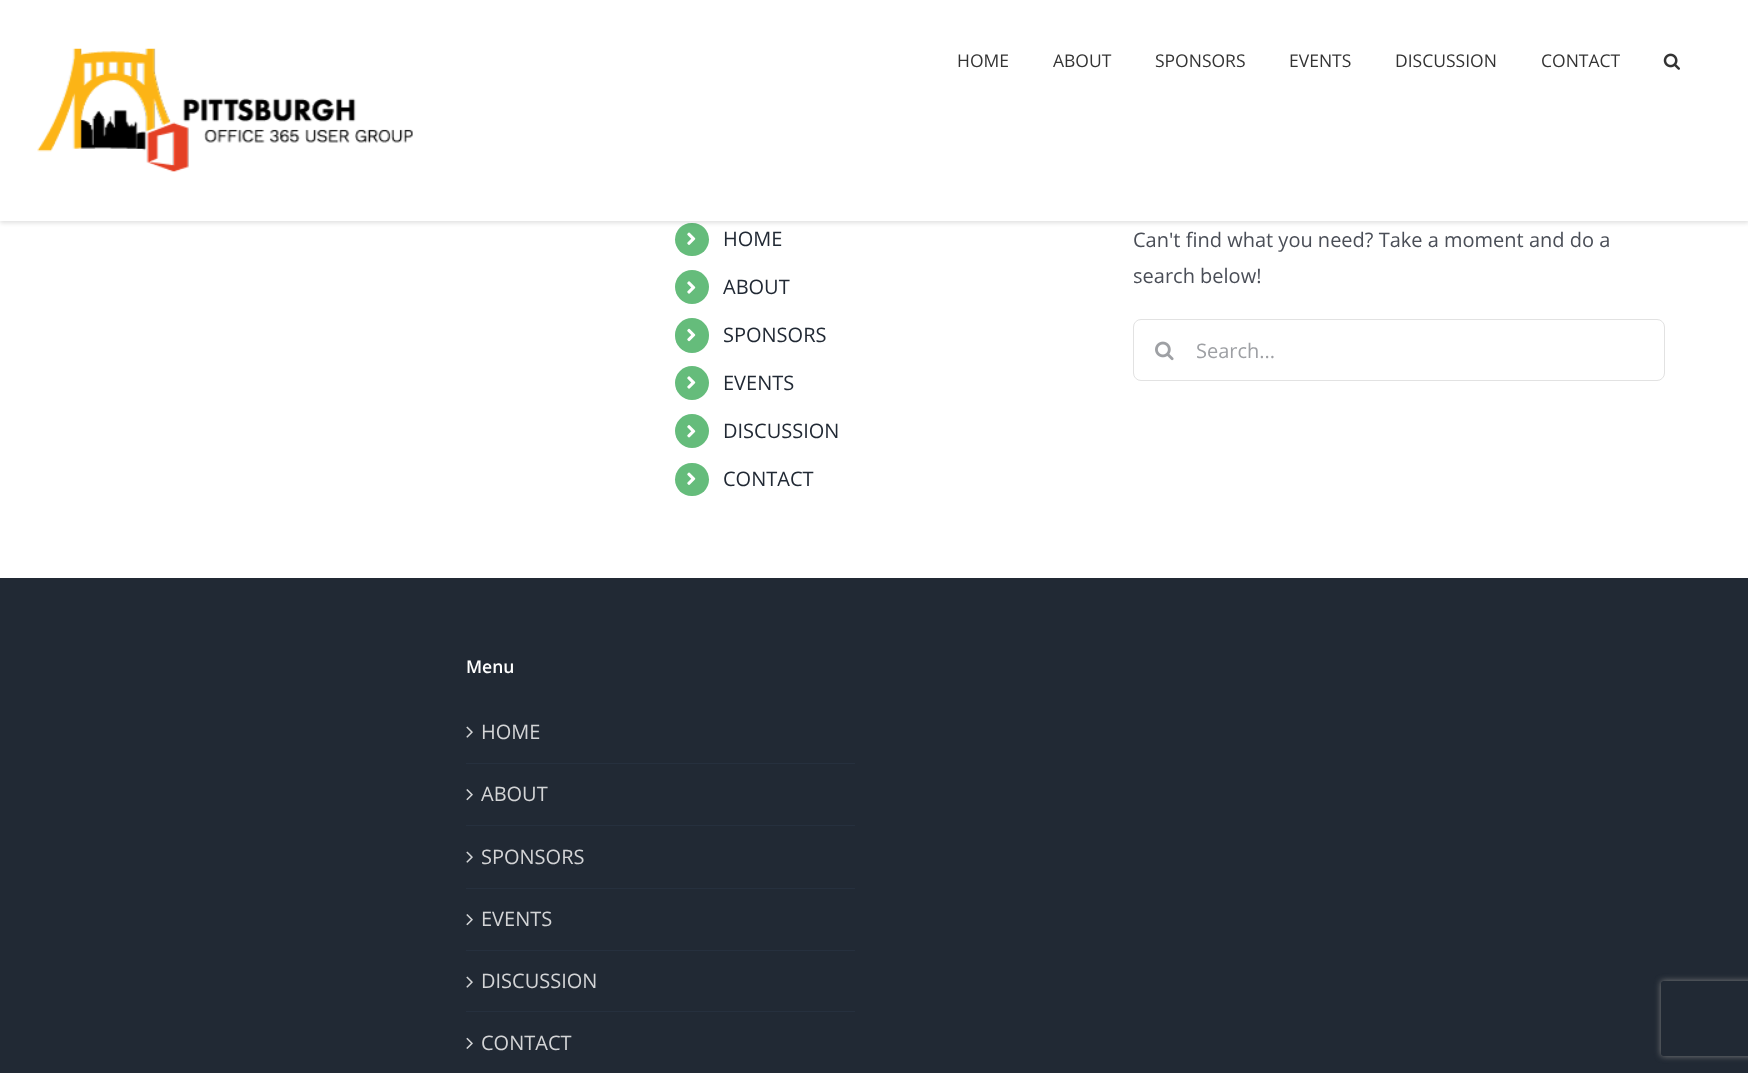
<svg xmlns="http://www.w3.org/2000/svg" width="1748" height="1073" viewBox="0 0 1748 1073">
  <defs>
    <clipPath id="clip1"><path d="M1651 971H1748V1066H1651ZM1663.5 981H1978.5C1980 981 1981 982 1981 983.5V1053.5C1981 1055 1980 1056 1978.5 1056H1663.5C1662 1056 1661 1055 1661 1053.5V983.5C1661 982 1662 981 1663.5 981Z" clip-rule="evenodd"/></clipPath>
  </defs>
  <rect width="100%" height="100%" fill="#fff"/>
  <rect x="675" y="223" width="34" height="33" rx="16.5" fill="#65bc7b"/>
  <path d="M0 1h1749v222H0z" fill="#0000001f" filter="blur(2px)"/>
  <path d="M0 0h1748v221H0z" fill="#fff"/>
  <image x="37" y="48" width="376" height="124" href="img/1.png"/>
  <image x="1663" y="53" width="17" height="17" href="img/2.png"/>
  <image x="687" y="232" width="9" height="13" href="img/3.png"/>
  <circle cx="692" cy="287" r="17" fill="#65bc7b"/>
  <image x="687" y="281" width="9" height="13" href="img/4.png"/>
  <rect x="675" y="318" width="34" height="35" rx="17" fill="#65bc7b"/>
  <image x="687" y="328" width="9" height="14" href="img/5.png"/>
  <circle cx="692" cy="383" r="17" fill="#65bc7b"/>
  <image x="687" y="376" width="9" height="13" href="img/4.png"/>
  <circle cx="692" cy="431" r="17" fill="#65bc7b"/>
  <image x="687" y="425" width="9" height="13" href="img/6.png"/>
  <rect x="675" y="463" width="34" height="33" rx="16.5" fill="#65bc7b"/>
  <image x="687" y="472" width="9" height="13" href="img/3.png"/>
  <rect x="1133.5" y="319.5" width="531" height="61" rx="7.5" fill="none" stroke="#e2e2e2"/>
  <image x="1155" y="341" width="19" height="20" href="img/7.png"/>
  <path d="M0 578h1748v495H0z" fill="#212934"/>
  <path d="M466 763h389v1H466z" fill="#26303e"/>
  <image x="466" y="726" width="7" height="12" href="img/8.png"/>
  <path d="M466 825h389v1H466z" fill="#26303e"/>
  <image x="466" y="789" width="7" height="12" href="img/9.png"/>
  <path d="M466 888h389v1H466z" fill="#26303e"/>
  <image x="466" y="851" width="7" height="12" href="img/8.png"/>
  <path d="M466 950h389v1H466z" fill="#26303e"/>
  <image x="466" y="914" width="7" height="12" href="img/9.png"/>
  <path d="M466 1011h389v1H466z" fill="#26303e"/>
  <image x="466" y="976" width="7" height="12" href="img/8.png"/>
  <image x="466" y="1037" width="7" height="12" href="img/10.png"/>
  <g clip-path="url(#clip1)">
    <rect x="1661" y="981" width="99" height="75" rx="2.5" fill="#808080" filter="blur(3px)"/>
  </g>
  <g font-family="Open Sans" font-size="17.5" fill="#333">
    <text x="957" y="67">HOME</text>
    <text x="1053" y="67">ABOUT</text>
    <text x="1155" y="67">SPONSORS</text>
    <text x="1289" y="67">EVENTS</text>
    <text x="1395" y="67">DISCUSSION</text>
    <text x="1541" y="67">CONTACT</text>
  </g>
  <g font-family="Open Sans" font-size="20" fill="#212934">
    <text x="723" y="246">HOME</text>
    <text x="723" y="294">ABOUT</text>
    <text x="723" y="342">SPONSORS</text>
    <text x="723" y="390">EVENTS</text>
    <text x="723" y="438">DISCUSSION</text>
    <text x="723" y="486">CONTACT</text>
  </g>
  <g font-family="Open Sans" font-size="20" fill="#4a4e57">
    <text x="1133" y="247">Can't find what you need? Take a moment and do a</text>
    <text x="1133" y="283">search below!</text>
  </g>
  <text x="1196" y="358" font-family="Open Sans" font-size="20" fill="#9ea0a4">Search...</text>
  <text x="466" y="673" font-family="Open Sans" font-size="17.5" font-weight="600" fill="#fff">Menu</text>
  <g font-family="Open Sans" font-size="20" fill="#d3d4d6">
    <text x="481" y="739">HOME</text>
    <text x="481" y="801">ABOUT</text>
    <text x="481" y="864">SPONSORS</text>
    <text x="481" y="926">EVENTS</text>
    <text x="481" y="988">DISCUSSION</text>
    <text x="481" y="1050">CONTACT</text>
  </g>
</svg>
